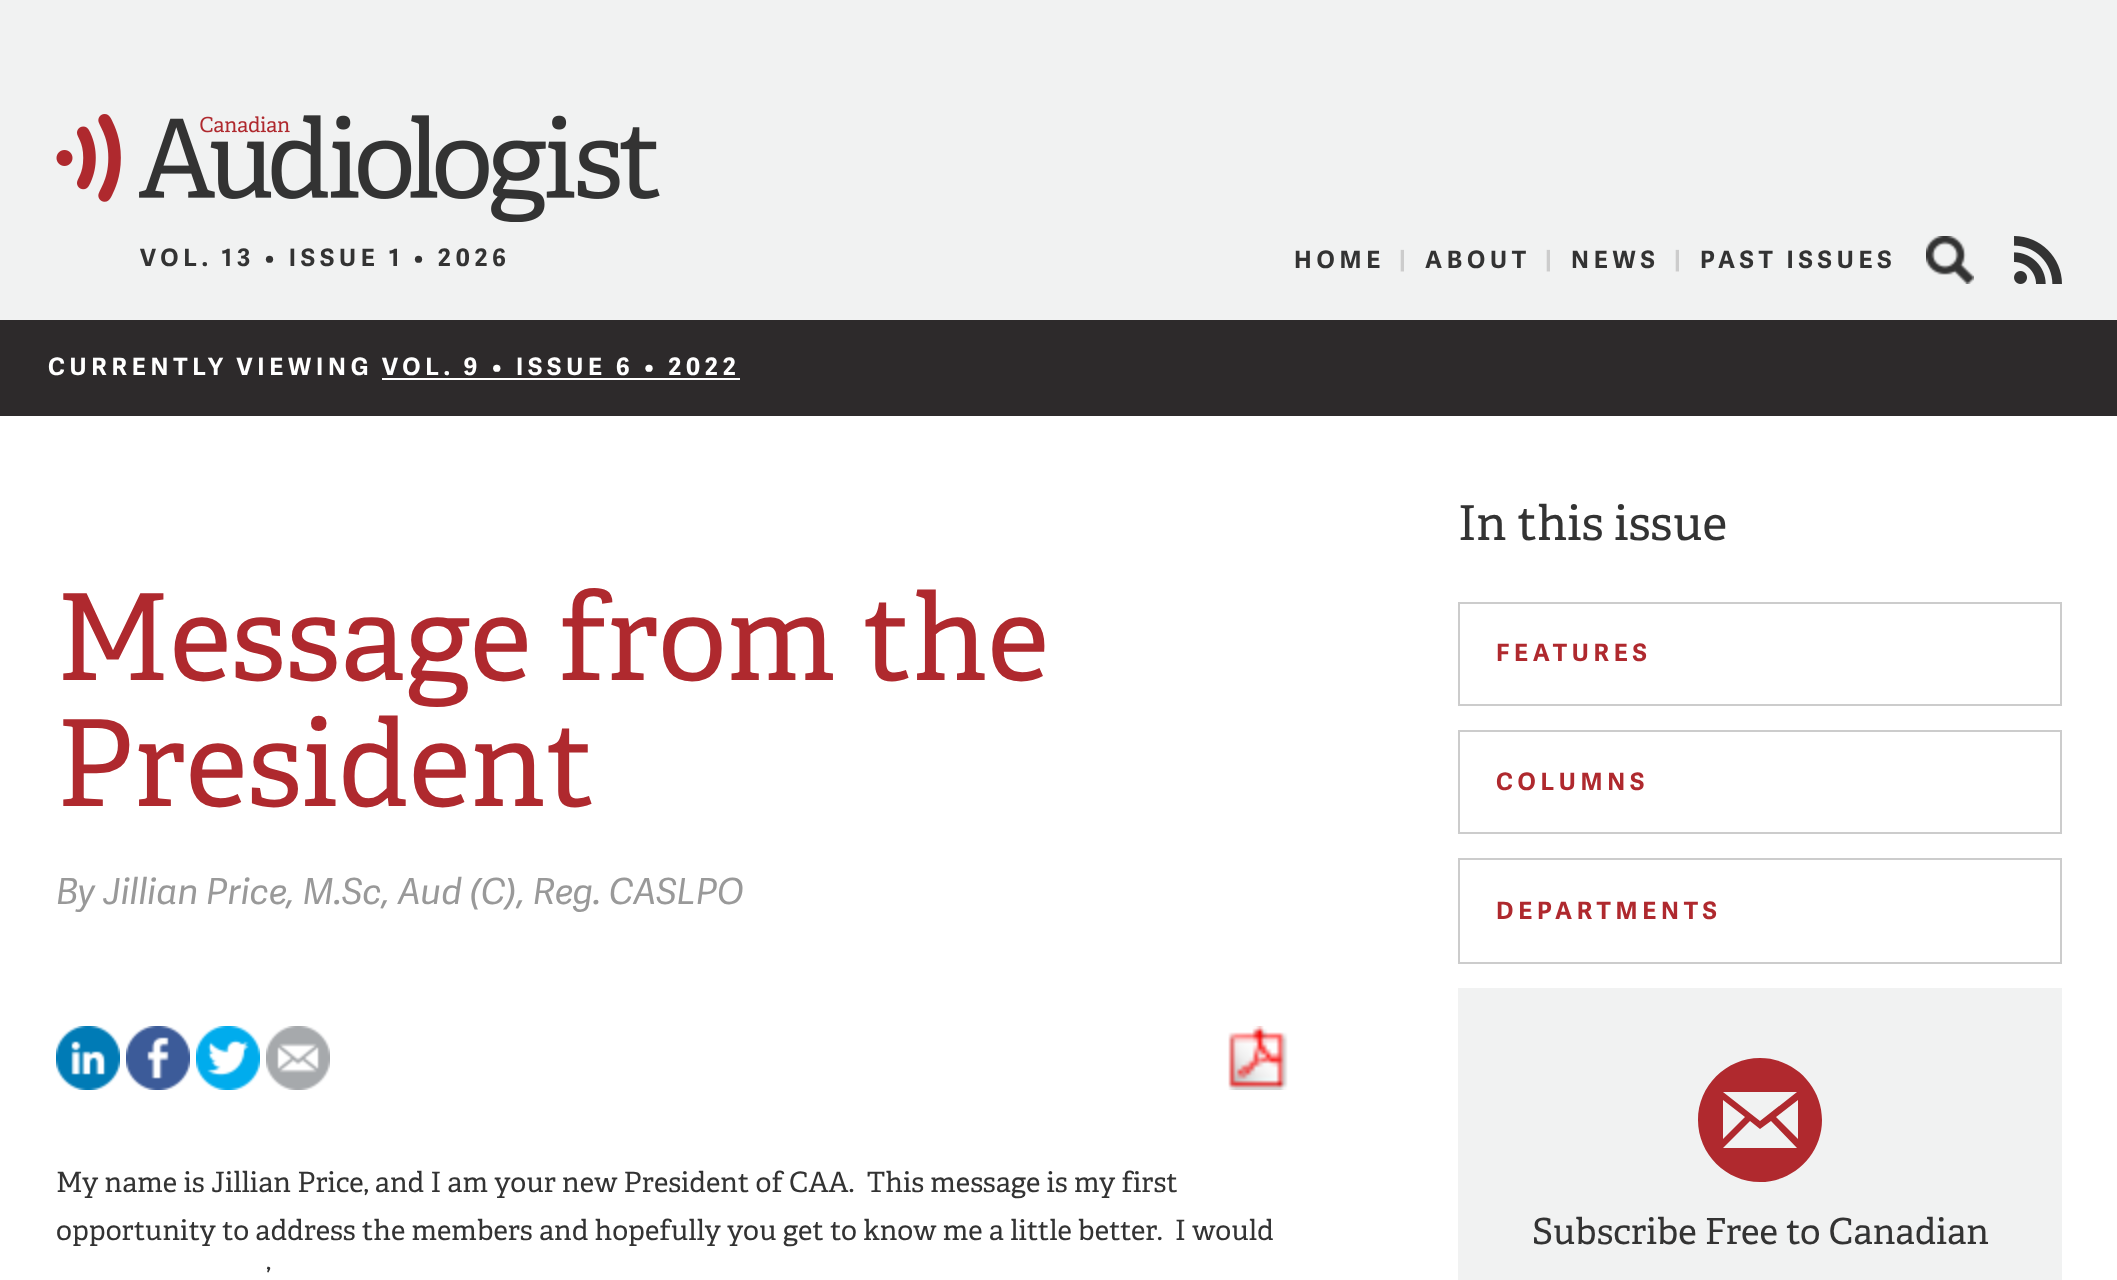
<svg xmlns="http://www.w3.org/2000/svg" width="2117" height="1280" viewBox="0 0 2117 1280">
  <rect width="100%" height="100%" fill="#2d2a2b"/>
  <path d="M0 0h2117v320H0z" fill="#f1f2f2"/>
  <image x="56" y="114" width="604" height="108" href="img/1.png"/>
  <image x="1926" y="236" width="48" height="48" href="img/2.png"/>
  <image x="2014" y="236" width="48" height="48" href="img/3.png"/>
  <path d="M382 378h358v2H382z" fill="#fff"/>
  <path d="M0 416h2117v864H0z" fill="#fff"/>
  <image x="56" y="1026" width="64" height="64" href="img/4.png"/>
  <image x="126" y="1026" width="64" height="64" href="img/5.png"/>
  <image x="196" y="1026" width="64" height="64" href="img/6.png"/>
  <image x="266" y="1026" width="64" height="64" href="img/7.png"/>
  <image x="1228" y="1026" width="60" height="64" href="img/8.png"/>
  <path d="M1459 603h602v102H1459z" fill="none" stroke="#ccc" stroke-width="2"/>
  <path d="M1459 731h602v102H1459z" fill="none" stroke="#ccc" stroke-width="2"/>
  <path d="M1459 859h602v104H1459z" fill="none" stroke="#ccc" stroke-width="2"/>
  <path d="M1458 988h604v292H1458z" fill="#f1f2f2"/>
  <path d="M1760 1058C1726 1058 1698 1086 1698 1120C1698 1154 1726 1182 1760 1182C1794 1182 1822 1154 1822 1120C1822 1086 1794 1058 1760 1058ZM1797 1092L1760 1121L1723 1092ZM1723 1100L1745 1117L1723 1139ZM1723 1148L1750 1121L1760 1129L1771 1121L1797 1148ZM1798 1139L1776 1117L1798 1100Z" fill="#b0292e"/>
  <g font-family="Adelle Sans" font-size="24" font-weight="bold" letter-spacing="4.8" fill="#333">
    <text x="140" y="266">VOL. 13 • ISSUE 1 • 2026</text>
    <text x="1294" y="268">HOME</text>
  </g>
  <text x="1399" y="268" font-family="Adelle Sans" font-size="24" font-weight="bold" letter-spacing="4.8" fill="#ccc">|</text>
  <text x="1425" y="268" font-family="Adelle Sans" font-size="24" font-weight="bold" letter-spacing="4.8" fill="#333">ABOUT</text>
  <text x="1545" y="268" font-family="Adelle Sans" font-size="24" font-weight="bold" letter-spacing="4.8" fill="#ccc">|</text>
  <text x="1571" y="268" font-family="Adelle Sans" font-size="24" font-weight="bold" letter-spacing="4.8" fill="#333">NEWS</text>
  <text x="1674" y="268" font-family="Adelle Sans" font-size="24" font-weight="bold" letter-spacing="4.8" fill="#ccc">|</text>
  <text x="1700" y="268" font-family="Adelle Sans" font-size="24" font-weight="bold" letter-spacing="4.8" fill="#333">PAST ISSUES</text>
  <g font-family="Adelle Sans" font-size="24" font-weight="bold" letter-spacing="4.8" fill="#fff">
    <text x="48" y="375">CURRENTLY VIEWING</text>
    <text x="382" y="375">VOL. 9 • ISSUE 6 • 2022</text>
  </g>
  <g font-family="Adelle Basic" font-size="120" fill="#af292e">
    <text x="56" y="680">Message from the</text>
    <text x="56" y="806">President</text>
  </g>
  <text x="56" y="904" font-family="Adelle Sans" font-size="36" font-style="italic" fill="#999">By Jillian Price, M.Sc, Aud (C), Reg. CASLPO</text>
  <g font-family="Adelle Basic" font-size="28" fill="#333">
    <text x="56" y="1192" xml:space="preserve">My name is Jillian Price, and I am your new President of CAA.  This message is my first</text>
    <text x="56" y="1240" xml:space="preserve">opportunity to address the members and hopefully you get to know me a little better.  I would</text>
    <text x="266" y="1288">’</text>
  </g>
  <text x="1458" y="540" font-family="Adelle Basic" font-size="48" fill="#333">In this issue</text>
  <g font-family="Adelle Sans" font-size="24" font-weight="bold" letter-spacing="4.8" fill="#af292e">
    <text x="1496" y="661">FEATURES</text>
    <text x="1496" y="790">COLUMNS</text>
    <text x="1496" y="919">DEPARTMENTS</text>
  </g>
  <text x="1532" y="1244" font-family="Adelle Basic" font-size="36" fill="#333">Subscribe Free to Canadian</text>
</svg>
